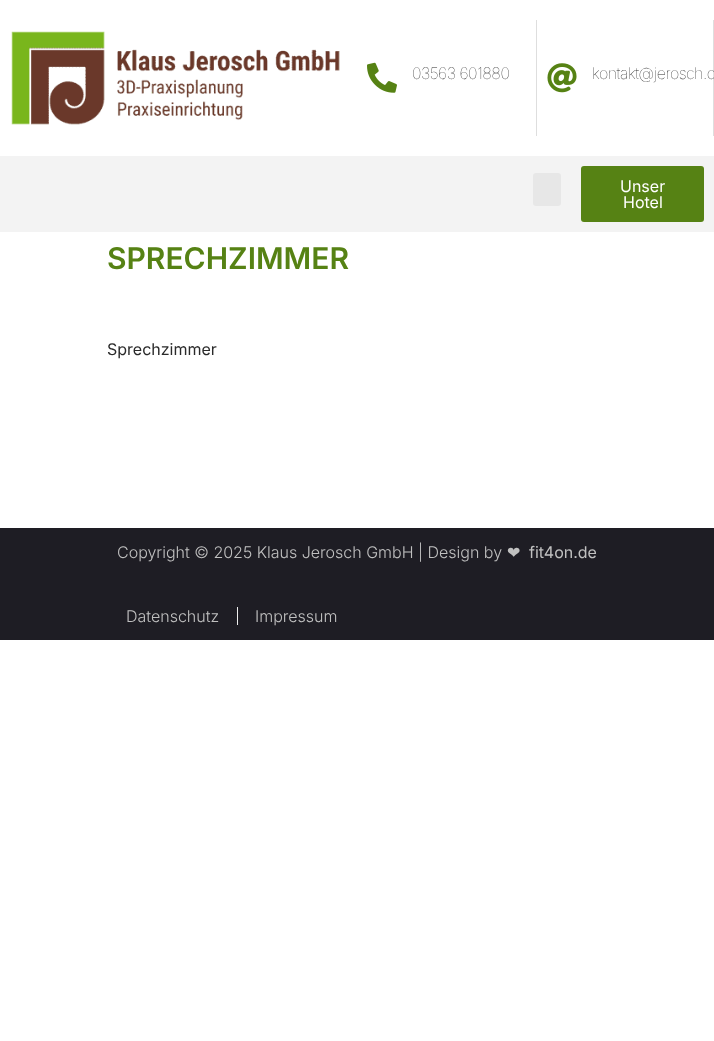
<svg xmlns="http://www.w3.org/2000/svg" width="714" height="1041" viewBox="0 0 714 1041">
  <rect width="100%" height="100%" fill="#fff"/>
  <image x="11" y="31" width="329" height="94" href="img/1.png"/>
  <image x="367" y="62" width="30" height="31" href="img/2.png"/>
  <path d="M713 20h1v116H713z" fill="#dedede"/>
  <path d="M536 20h1v116H536z" fill="#dedede"/>
  <image x="547" y="63" width="30" height="30" href="img/3.png"/>
  <path d="M0 156h714v76H0z" fill="#f3f3f3"/>
  <rect x="533" y="173" width="28" height="33" rx="3" fill="#e7e7e7"/>
  <rect x="581" y="166" width="123" height="56" rx="3" fill="#568214"/>
  <path d="M0 528h714v112H0z" fill="#1e1d24"/>
  <path d="M237 607h1v18H237z" fill="#ededed"/>
  <g font-family="Inter" font-size="16" font-weight="100" letter-spacing="-0.5" fill="#2a2a2a">
    <text x="412" y="79">03563 601880</text>
    <text x="592" y="79">kontakt@jerosch.c</text>
  </g>
  <g font-family="Inter" font-size="16" fill="#fff">
    <text x="620" y="192">Unser</text>
    <text x="623" y="208">Hotel</text>
  </g>
  <text x="107" y="269" font-family="Inter" font-size="30" font-weight="600" fill="#568214">SPRECHZIMMER</text>
  <text x="107" y="355" font-family="Inter" font-size="16" fill="#2a2a2a">Sprechzimmer</text>
  <text x="117" y="558" font-family="Inter" font-size="16" font-weight="300" fill="#c0c0c0">Copyright © 2025 Klaus Jerosch GmbH | Design by</text>
  <text x="507" y="558" font-family="DejaVu Sans" font-size="16" fill="#c0c0c0">❤</text>
  <text x="529" y="558" font-family="Inter" font-size="16" fill="#c0c0c0">fit4on.de</text>
  <g font-family="Inter" font-size="16" font-weight="300" fill="#c0c0c0">
    <text x="126" y="622">Datenschutz</text>
    <text x="255" y="622">Impressum</text>
  </g>
</svg>
